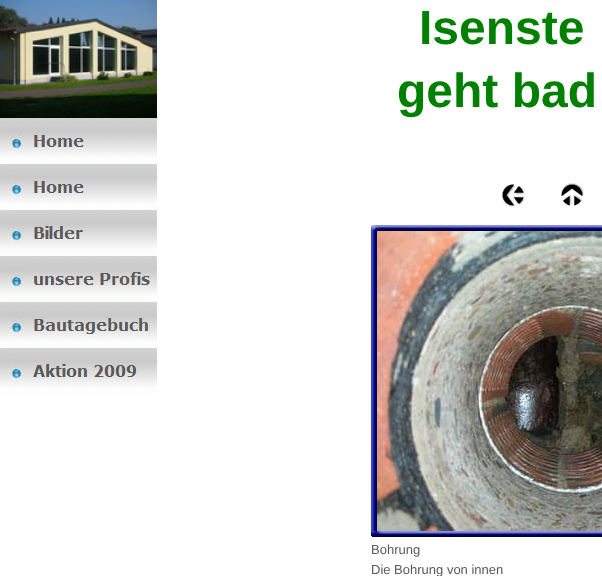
<svg xmlns="http://www.w3.org/2000/svg" width="602" height="576" viewBox="0 0 602 576">
  <rect width="100%" height="100%" fill="#fff"/>
  <image x="0" y="0" width="157" height="118" href="img/1.png"/>
  <image x="0" y="118" width="157" height="46" href="img/2.png"/>
  <image x="0" y="164" width="157" height="46" href="img/2.png"/>
  <image x="0" y="210" width="157" height="46" href="img/3.png"/>
  <image x="0" y="256" width="157" height="46" href="img/4.png"/>
  <image x="0" y="302" width="157" height="46" href="img/5.png"/>
  <image x="0" y="348" width="157" height="46" href="img/6.png"/>
  <image x="502" y="184" width="23" height="23" href="img/7.png"/>
  <image x="561" y="183" width="23" height="23" href="img/8.png"/>
  <image x="371" y="225" width="6" height="6" href="img/9.png"/>
  <image x="377" y="225" width="225" height="6" href="img/10.png"/>
  <image x="371" y="231" width="6" height="300" href="img/11.png"/>
  <image x="377" y="231" width="225" height="300" href="img/12.png"/>
  <image x="371" y="531" width="6" height="6" href="img/13.png"/>
  <image x="377" y="531" width="225" height="6" href="img/14.png"/>
  <g font-family="Liberation Sans" font-size="48" font-weight="bold" fill="#008000">
    <text x="419" y="44">Isenste</text>
    <text x="397" y="107">geht bad</text>
  </g>
  <g font-family="Liberation Sans" font-size="13" fill="#5a5a5a">
    <text x="371" y="554">Bohrung</text>
    <text x="371" y="574">Die Bohrung von innen</text>
  </g>
</svg>
